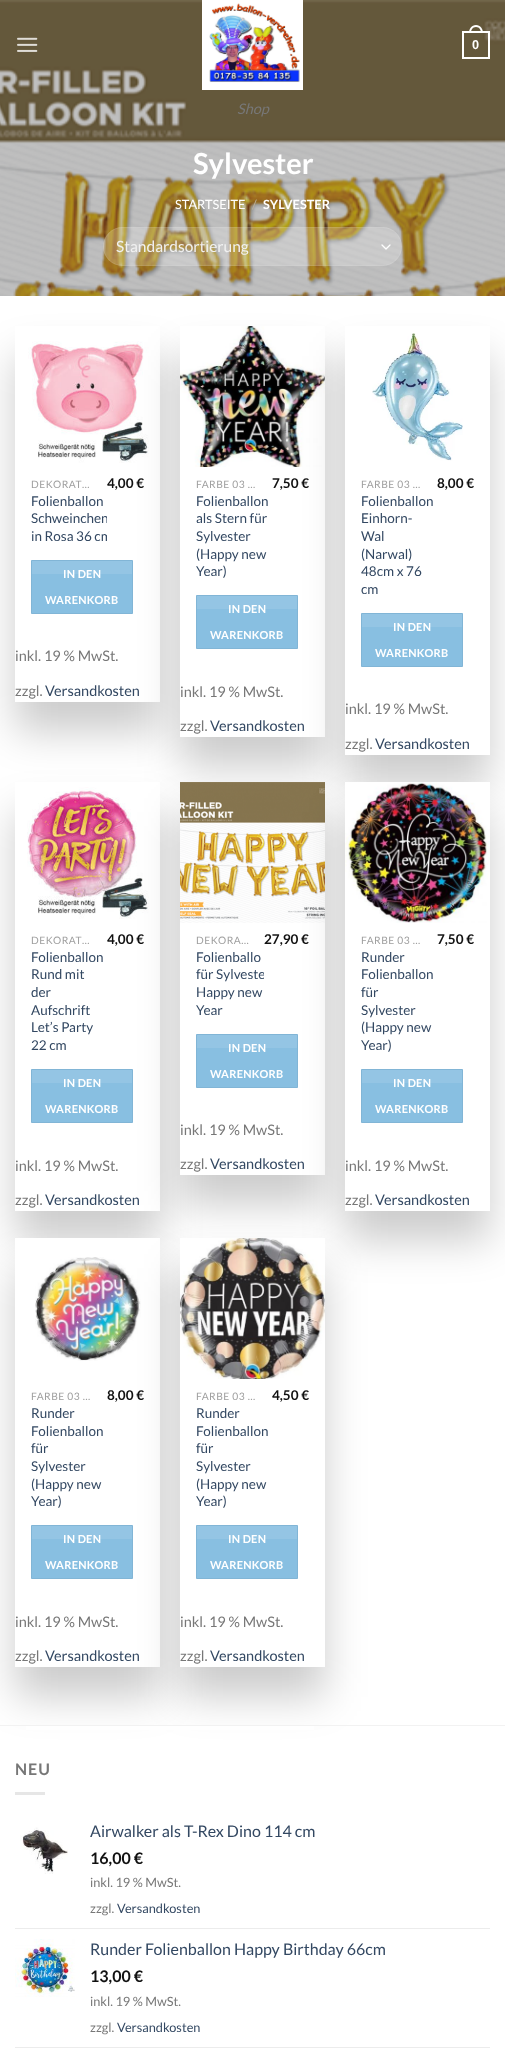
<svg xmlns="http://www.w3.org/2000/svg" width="505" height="2055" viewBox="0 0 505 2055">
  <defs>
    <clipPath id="clip1"><path d="M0 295H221V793H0ZM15 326H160V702H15Z" clip-rule="evenodd"/></clipPath>
    <clipPath id="clip2"><path d="M31 477h76v72H31z"/></clipPath>
    <clipPath id="clip3"><path d="M196 933h68v90H196z"/></clipPath>
  </defs>
  <rect width="100%" height="100%" fill="#fff"/>
  <image x="0" y="0" width="505" height="296" href="img/3.png"/>
  <image x="17" y="37" width="21" height="15" href="img/1.png"/>
  <path d="M463 32h26v26H463z" fill="none" stroke="#fff" stroke-width="2"/>
  <path d="M476 25C480.5 25 483 29 483 33H469C469 29 471.5 25 476 25ZM476 27C479.5 27 481 30 481 33H471C471 30 472.5 27 476 27Z" fill="#fff" fill-rule="evenodd"/>
  <image x="202" y="0" width="101" height="90" href="img/2.png"/>
  <rect x="103" y="227" width="299" height="39" rx="19.5" fill="#ffffff33"/>
  <path d="M382 245L386 249L390 245" fill="none" stroke="#fff" stroke-width="1.3" stroke-linecap="round" stroke-linejoin="round"/>
  <rect x="103.5" y="227.5" width="298" height="38" rx="19" fill="none" stroke="#ffffff17"/>
  <g clip-path="url(#clip1)">
    <path d="M15 356h145v376H15z" fill="#00000033" filter="blur(20px)"/>
  </g>
  <image x="28" y="341" width="121" height="122" href="img/4.png"/>
  <path d="M31.5 560.5h101v53H31.5z" fill="#88bfe1" stroke="#81b5d6"/>
  <path d="M32 561h100v13H32z" fill="#ffffff1a"/>
  <path d="M180 356h145v411H180z" fill="#00000033" filter="blur(20px)"/>
  <path d="M180 467h145v270H180z" fill="#fff"/>
  <image x="180" y="326" width="145" height="141" href="img/5.png"/>
  <path d="M196.5 595.5h101v53H196.5z" fill="#88bfe1" stroke="#81b5d6"/>
  <path d="M197 596h100v13H197z" fill="#ffffff1a"/>
  <path d="M345 356h145v429H345z" fill="#00000033" filter="blur(20px)"/>
  <path d="M345 326h145v429H345z" fill="#fff"/>
  <image x="372" y="333" width="91" height="128" href="img/6.png"/>
  <path d="M361.5 613.5h101v53H361.5z" fill="#88bfe1" stroke="#81b5d6"/>
  <path d="M362 614h100v13H362z" fill="#ffffff1a"/>
  <path d="M15 812h145v429H15z" fill="#00000033" filter="blur(20px)"/>
  <path d="M15 782h145v429H15z" fill="#fff"/>
  <image x="27" y="787" width="122" height="132" href="img/7.png"/>
  <path d="M31.5 1069.5h101v53H31.5z" fill="#88bfe1" stroke="#81b5d6"/>
  <path d="M32 1070h100v13H32z" fill="#ffffff1a"/>
  <path d="M180 812h145v393H180z" fill="#00000033" filter="blur(20px)"/>
  <path d="M180 782h145v393H180z" fill="#fff"/>
  <image x="180" y="782" width="145" height="141" href="img/8.png"/>
  <path d="M196.5 1034.5h101v53H196.5z" fill="#88bfe1" stroke="#81b5d6"/>
  <path d="M197 1035h100v13H197z" fill="#ffffff1a"/>
  <path d="M345 812h145v429H345z" fill="#00000033" filter="blur(20px)"/>
  <path d="M345 923h145v288H345z" fill="#fff"/>
  <image x="345" y="782" width="145" height="141" href="img/9.png"/>
  <path d="M361.5 1069.5h101v53H361.5z" fill="#88bfe1" stroke="#81b5d6"/>
  <path d="M362 1070h100v13H362z" fill="#ffffff1a"/>
  <path d="M15 1268h145v429H15z" fill="#00000033" filter="blur(20px)"/>
  <path d="M15 1238h145v429H15z" fill="#fff"/>
  <image x="35" y="1257" width="106" height="104" href="img/10.png"/>
  <path d="M31.5 1525.5h101v53H31.5z" fill="#88bfe1" stroke="#81b5d6"/>
  <path d="M32 1526h100v13H32z" fill="#ffffff1a"/>
  <path d="M180 1268h145v429H180z" fill="#00000033" filter="blur(20px)"/>
  <path d="M180 1379h145v288H180z" fill="#fff"/>
  <image x="180" y="1238" width="145" height="141" href="img/11.png"/>
  <path d="M196.5 1525.5h101v53H196.5z" fill="#88bfe1" stroke="#81b5d6"/>
  <path d="M197 1526h100v13H197z" fill="#ffffff1a"/>
  <path d="M26 1726h288v4H26z" fill="#fff"/>
  <path d="M0 1725h505v1H0z" fill="#f2f2f2"/>
  <path d="M15 1792h30v3H15z" fill="#e6e6e6"/>
  <image x="20" y="1827" width="48" height="47" href="img/12.png"/>
  <path d="M15 1928h475v1H15z" fill="#ececec"/>
  <image x="15" y="1939" width="60" height="58" href="img/13.png"/>
  <path d="M15 2047h475v1H15z" fill="#ececec"/>
  <text x="472" y="49" font-family="Liberation Sans" font-size="12.75" font-weight="bold" fill="#fff">0</text>
  <text x="237" y="114" font-family="Lato" font-size="14.5" font-style="italic" fill="#777">Shop</text>
  <text x="193" y="174" font-family="Lato" font-size="29" font-weight="bold" fill="#fff">Sylvester</text>
  <text x="175" y="209" font-family="Lato" font-size="12.75" fill="#fff">STARTSEITE</text>
  <text x="252" y="209" font-family="Lato" font-size="12.75" fill="#bcaf9a">/</text>
  <text x="263" y="209" font-family="Lato" font-size="12.75" font-weight="bold" fill="#fff">SYLVESTER</text>
  <text x="116" y="252" font-family="Lato" font-size="15.5" fill="#f1f1f1">Standardsortierung</text>
  <text x="31" y="488" font-family="Lato" font-size="10.25" letter-spacing="0.5" fill="#a0a0a0">DEKORAT…</text>
  <text x="31" y="506" font-family="Lato" font-size="13.5" fill="#334862">Folienballon</text>
  <g clip-path="url(#clip2)">
    <g font-family="Lato" font-size="13.5" fill="#334862">
      <text x="31" y="523">Schweinchen</text>
      <text x="31" y="541">in Rosa 36 cm</text>
    </g>
  </g>
  <text x="107" y="488" font-family="Lato" font-size="13.5" font-weight="bold" fill="#111">4,00 €</text>
  <g font-family="Lato" font-size="11" font-weight="bold" letter-spacing="0.25" fill="#fff">
    <text x="63" y="578">IN DEN</text>
    <text x="45" y="604">WARENKORB</text>
  </g>
  <g font-family="Lato" font-size="14.5" fill="#777">
    <text x="15" y="661">inkl. 19 % MwSt.</text>
    <text x="15" y="696">zzgl.</text>
  </g>
  <text x="45" y="696" font-family="Lato" font-size="14.5" fill="#334862">Versandkosten</text>
  <text x="196" y="488" font-family="Lato" font-size="10.25" letter-spacing="0.5" fill="#a0a0a0">FARBE 03 …</text>
  <g font-family="Lato" font-size="13.5" fill="#334862">
    <text x="196" y="506">Folienballon</text>
    <text x="196" y="523">als Stern für</text>
    <text x="196" y="541">Sylvester</text>
    <text x="196" y="559">(Happy new</text>
    <text x="196" y="576">Year)</text>
  </g>
  <text x="272" y="488" font-family="Lato" font-size="13.5" font-weight="bold" fill="#111">7,50 €</text>
  <g font-family="Lato" font-size="11" font-weight="bold" letter-spacing="0.25" fill="#fff">
    <text x="228" y="613">IN DEN</text>
    <text x="210" y="639">WARENKORB</text>
  </g>
  <g font-family="Lato" font-size="14.5" fill="#777">
    <text x="180" y="697">inkl. 19 % MwSt.</text>
    <text x="180" y="731">zzgl.</text>
  </g>
  <text x="210" y="731" font-family="Lato" font-size="14.5" fill="#334862">Versandkosten</text>
  <text x="361" y="488" font-family="Lato" font-size="10.25" letter-spacing="0.5" fill="#a0a0a0">FARBE 03 …</text>
  <g font-family="Lato" font-size="13.5" fill="#334862">
    <text x="361" y="506">Folienballon</text>
    <text x="361" y="523">Einhorn-</text>
    <text x="361" y="541">Wal</text>
    <text x="361" y="559">(Narwal)</text>
    <text x="361" y="576">48cm x 76</text>
    <text x="361" y="594">cm</text>
  </g>
  <text x="437" y="488" font-family="Lato" font-size="13.5" font-weight="bold" fill="#111">8,00 €</text>
  <g font-family="Lato" font-size="11" font-weight="bold" letter-spacing="0.25" fill="#fff">
    <text x="393" y="631">IN DEN</text>
    <text x="375" y="657">WARENKORB</text>
  </g>
  <g font-family="Lato" font-size="14.5" fill="#777">
    <text x="345" y="714">inkl. 19 % MwSt.</text>
    <text x="345" y="749">zzgl.</text>
  </g>
  <text x="375" y="749" font-family="Lato" font-size="14.5" fill="#334862">Versandkosten</text>
  <text x="31" y="944" font-family="Lato" font-size="10.25" letter-spacing="0.5" fill="#a0a0a0">DEKORAT…</text>
  <g font-family="Lato" font-size="13.5" fill="#334862">
    <text x="31" y="962">Folienballon</text>
    <text x="31" y="979">Rund mit</text>
    <text x="31" y="997">der</text>
    <text x="31" y="1015">Aufschrift</text>
    <text x="31" y="1032">Let’s Party</text>
    <text x="31" y="1050">22 cm</text>
  </g>
  <text x="107" y="944" font-family="Lato" font-size="13.5" font-weight="bold" fill="#111">4,00 €</text>
  <g font-family="Lato" font-size="11" font-weight="bold" letter-spacing="0.25" fill="#fff">
    <text x="63" y="1087">IN DEN</text>
    <text x="45" y="1113">WARENKORB</text>
  </g>
  <g font-family="Lato" font-size="14.5" fill="#777">
    <text x="15" y="1171">inkl. 19 % MwSt.</text>
    <text x="15" y="1205">zzgl.</text>
  </g>
  <text x="45" y="1205" font-family="Lato" font-size="14.5" fill="#334862">Versandkosten</text>
  <text x="196" y="944" font-family="Lato" font-size="10.25" letter-spacing="0.5" fill="#a0a0a0">DEKORA…</text>
  <text x="196" y="962" font-family="Lato" font-size="13.5" fill="#334862">Folienballo</text>
  <g clip-path="url(#clip3)">
    <text x="196" y="979" font-family="Lato" font-size="13.5" fill="#334862">für Sylveste</text>
  </g>
  <g font-family="Lato" font-size="13.5" fill="#334862">
    <text x="196" y="997">Happy new</text>
    <text x="196" y="1015">Year</text>
  </g>
  <text x="264" y="944" font-family="Lato" font-size="13.5" font-weight="bold" fill="#111">27,90 €</text>
  <g font-family="Lato" font-size="11" font-weight="bold" letter-spacing="0.25" fill="#fff">
    <text x="228" y="1052">IN DEN</text>
    <text x="210" y="1078">WARENKORB</text>
  </g>
  <g font-family="Lato" font-size="14.5" fill="#777">
    <text x="180" y="1135">inkl. 19 % MwSt.</text>
    <text x="180" y="1169">zzgl.</text>
  </g>
  <text x="210" y="1169" font-family="Lato" font-size="14.5" fill="#334862">Versandkosten</text>
  <text x="361" y="944" font-family="Lato" font-size="10.25" letter-spacing="0.5" fill="#a0a0a0">FARBE 03 …</text>
  <g font-family="Lato" font-size="13.5" fill="#334862">
    <text x="361" y="962">Runder</text>
    <text x="361" y="979">Folienballon</text>
    <text x="361" y="997">für</text>
    <text x="361" y="1015">Sylvester</text>
    <text x="361" y="1032">(Happy new</text>
    <text x="361" y="1050">Year)</text>
  </g>
  <text x="437" y="944" font-family="Lato" font-size="13.5" font-weight="bold" fill="#111">7,50 €</text>
  <g font-family="Lato" font-size="11" font-weight="bold" letter-spacing="0.25" fill="#fff">
    <text x="393" y="1087">IN DEN</text>
    <text x="375" y="1113">WARENKORB</text>
  </g>
  <g font-family="Lato" font-size="14.5" fill="#777">
    <text x="345" y="1171">inkl. 19 % MwSt.</text>
    <text x="345" y="1205">zzgl.</text>
  </g>
  <text x="375" y="1205" font-family="Lato" font-size="14.5" fill="#334862">Versandkosten</text>
  <text x="31" y="1400" font-family="Lato" font-size="10.25" letter-spacing="0.5" fill="#a0a0a0">FARBE 03 …</text>
  <g font-family="Lato" font-size="13.5" fill="#334862">
    <text x="31" y="1418">Runder</text>
    <text x="31" y="1436">Folienballon</text>
    <text x="31" y="1453">für</text>
    <text x="31" y="1471">Sylvester</text>
    <text x="31" y="1489">(Happy new</text>
    <text x="31" y="1506">Year)</text>
  </g>
  <text x="107" y="1400" font-family="Lato" font-size="13.5" font-weight="bold" fill="#111">8,00 €</text>
  <g font-family="Lato" font-size="11" font-weight="bold" letter-spacing="0.25" fill="#fff">
    <text x="63" y="1543">IN DEN</text>
    <text x="45" y="1569">WARENKORB</text>
  </g>
  <g font-family="Lato" font-size="14.5" fill="#777">
    <text x="15" y="1627">inkl. 19 % MwSt.</text>
    <text x="15" y="1661">zzgl.</text>
  </g>
  <text x="45" y="1661" font-family="Lato" font-size="14.5" fill="#334862">Versandkosten</text>
  <text x="196" y="1400" font-family="Lato" font-size="10.25" letter-spacing="0.5" fill="#a0a0a0">FARBE 03 …</text>
  <g font-family="Lato" font-size="13.5" fill="#334862">
    <text x="196" y="1418">Runder</text>
    <text x="196" y="1436">Folienballon</text>
    <text x="196" y="1453">für</text>
    <text x="196" y="1471">Sylvester</text>
    <text x="196" y="1489">(Happy new</text>
    <text x="196" y="1506">Year)</text>
  </g>
  <text x="272" y="1400" font-family="Lato" font-size="13.5" font-weight="bold" fill="#111">4,50 €</text>
  <g font-family="Lato" font-size="11" font-weight="bold" letter-spacing="0.25" fill="#fff">
    <text x="228" y="1543">IN DEN</text>
    <text x="210" y="1569">WARENKORB</text>
  </g>
  <g font-family="Lato" font-size="14.5" fill="#777">
    <text x="180" y="1627">inkl. 19 % MwSt.</text>
    <text x="180" y="1661">zzgl.</text>
  </g>
  <text x="210" y="1661" font-family="Lato" font-size="14.5" fill="#334862">Versandkosten</text>
  <text x="15" y="1775" font-family="Lato" font-size="16" font-weight="bold" letter-spacing="1" fill="#777">NEU</text>
  <text x="90" y="1837" font-family="Lato" font-size="16" fill="#334862">Airwalker als T-Rex Dino 114 cm</text>
  <text x="90" y="1864" font-family="Lato" font-size="16" font-weight="bold" fill="#111">16,00 €</text>
  <g font-family="Lato" font-size="12.75" fill="#777">
    <text x="90" y="1887">inkl. 19 % MwSt.</text>
    <text x="90" y="1913">zzgl.</text>
  </g>
  <text x="117" y="1913" font-family="Lato" font-size="12.75" fill="#334862">Versandkosten</text>
  <text x="90" y="1955" font-family="Lato" font-size="16" fill="#334862">Runder Folienballon Happy Birthday 66cm</text>
  <text x="90" y="1982" font-family="Lato" font-size="16" font-weight="bold" fill="#111">13,00 €</text>
  <g font-family="Lato" font-size="12.75" fill="#777">
    <text x="90" y="2006">inkl. 19 % MwSt.</text>
    <text x="90" y="2032">zzgl.</text>
  </g>
  <text x="117" y="2032" font-family="Lato" font-size="12.75" fill="#334862">Versandkosten</text>
</svg>
